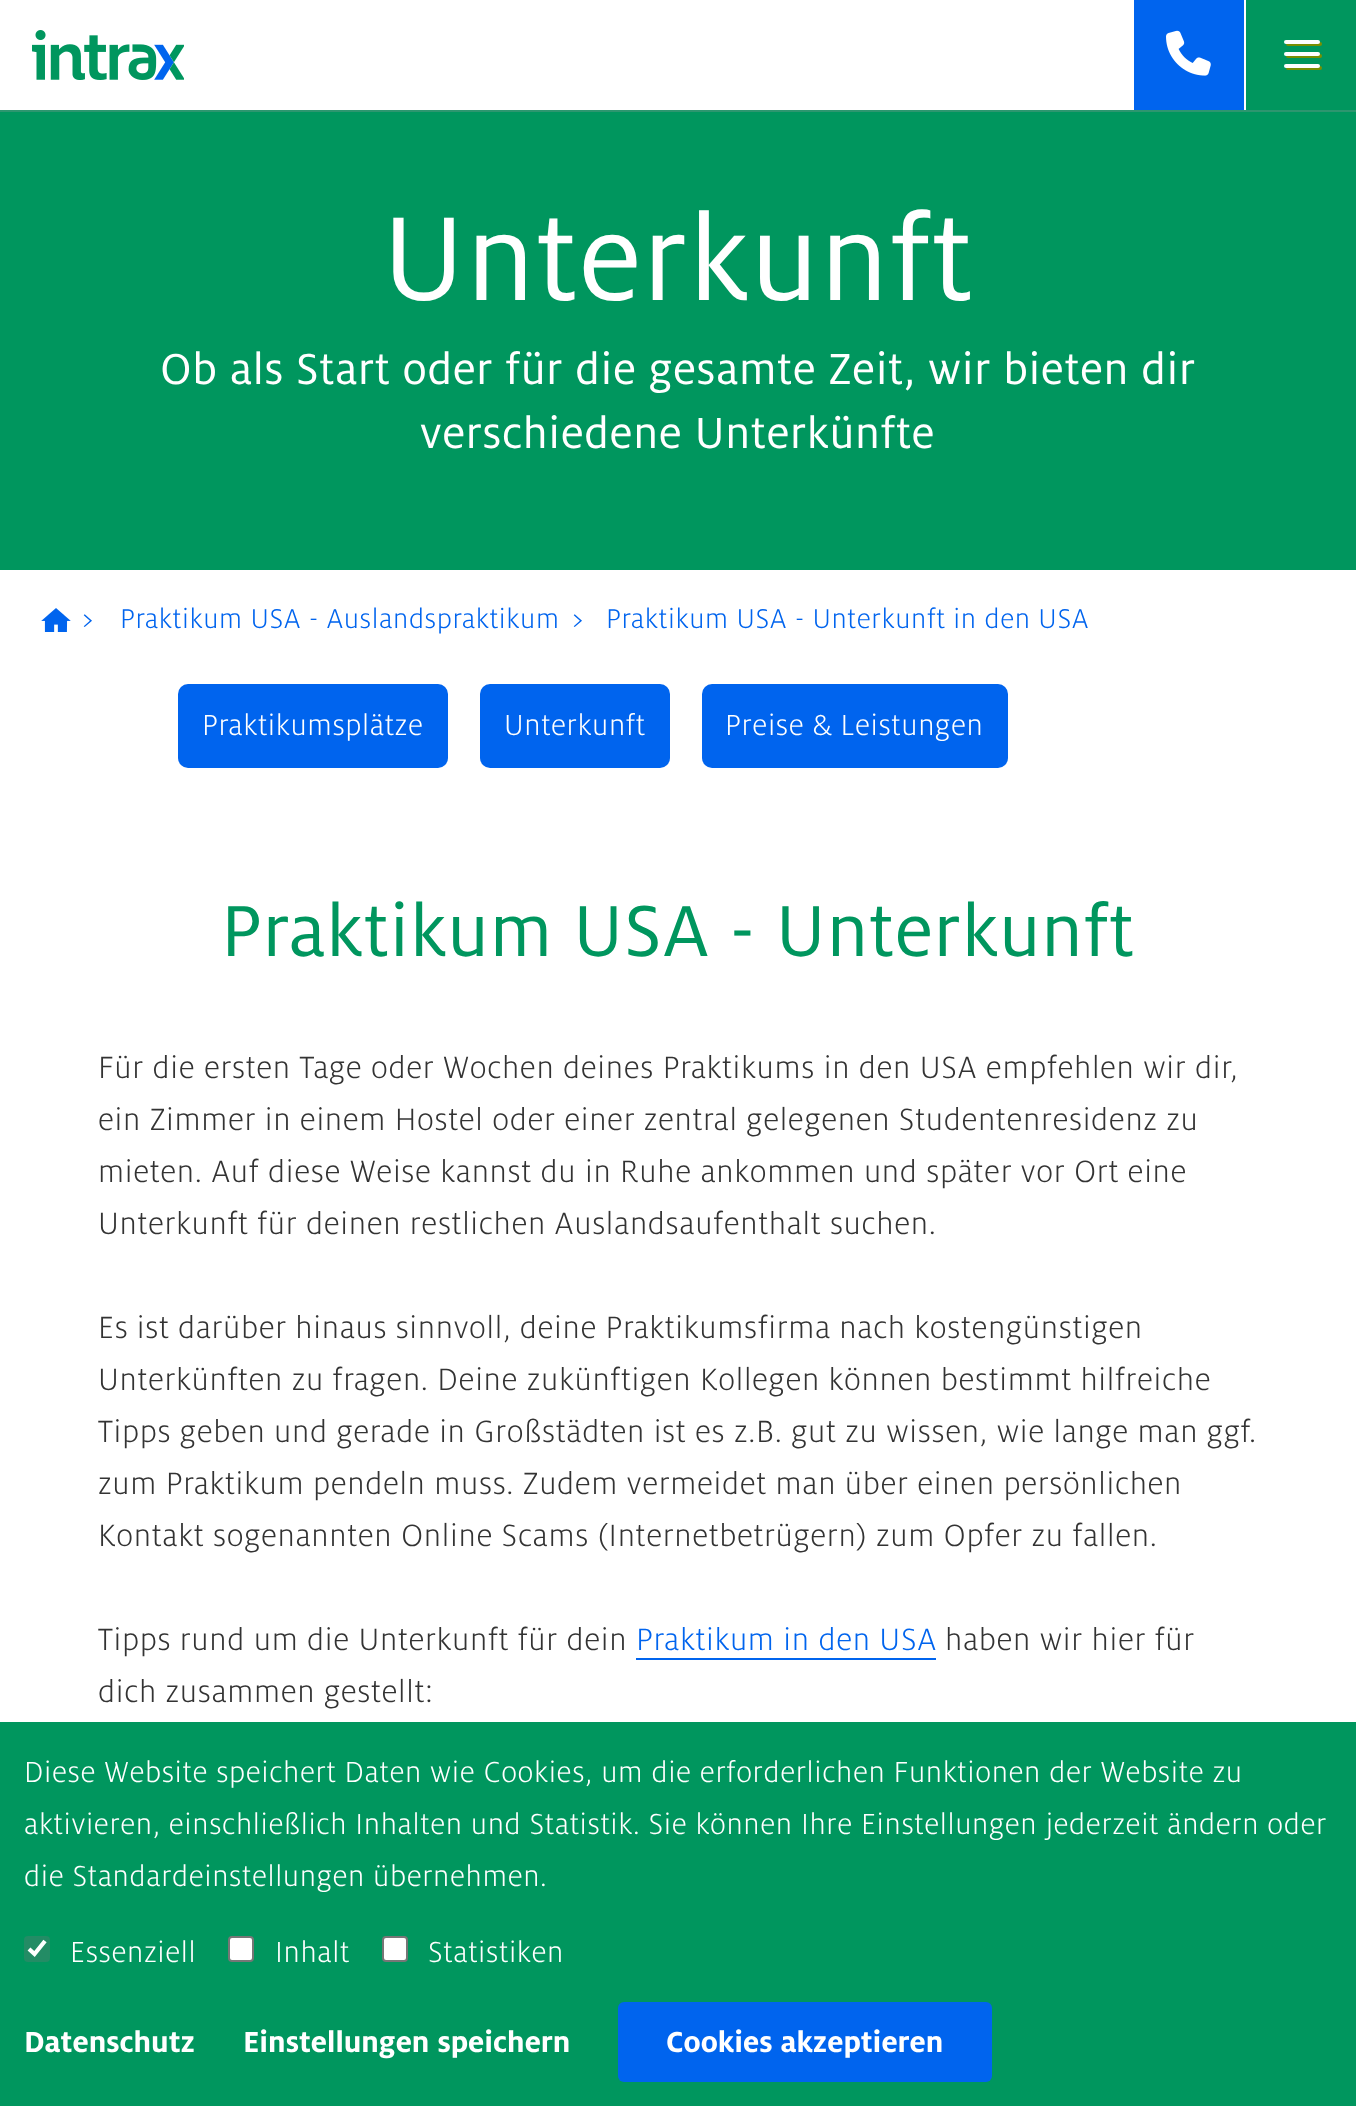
<svg xmlns="http://www.w3.org/2000/svg" width="1356" height="2106" viewBox="0 0 1356 2106">
  <rect width="100%" height="100%" fill="#fff"/>
  <path d="M0 112h1356v458H0z" fill="#00965e"/>
  <path d="M0 110h1356v2H0z" fill="#2d966f"/>
  <image x="32" y="30" width="152" height="50" href="img/1.png"/>
  <path d="M1134 0h110v110H1134z" fill="#0064ee"/>
  <image x="1166" y="30" width="45" height="46" href="img/2.png"/>
  <path d="M1246 0h110v110H1246z" fill="#00965e"/>
  <rect x="1286" y="54" width="36" height="4" rx="2" fill="#798f02"/>
  <rect x="1286" y="66" width="36" height="4" rx="2" fill="#798f02"/>
  <rect x="1286" y="42" width="36" height="4" rx="2" fill="#798f02"/>
  <rect x="1284" y="52" width="36" height="4" rx="2" fill="#fff"/>
  <rect x="1284" y="64" width="36" height="4" rx="2" fill="#fff"/>
  <rect x="1284" y="40" width="36" height="4" rx="2" fill="#fff"/>
  <image x="41" y="608" width="30" height="24" href="img/3.png"/>
  <rect x="178" y="684" width="270" height="84" rx="10" fill="#0064ee"/>
  <rect x="480" y="684" width="190" height="84" rx="10" fill="#0064ee"/>
  <rect x="702" y="684" width="306" height="84" rx="10" fill="#0064ee"/>
  <path d="M636 1658h300v2H636z" fill="#0064ee"/>
  <path d="M0 1722h1356v384H0z" fill="#00965e"/>
  <rect x="24" y="1936" width="26" height="26" rx="4" fill="#238c65"/>
  <path d="M29 1949L34.5 1954L45 1941" fill="none" stroke="#fff" stroke-width="4.2"/>
  <rect x="229" y="1937" width="24" height="24" rx="3" fill="#fff" stroke="#767676" stroke-width="2"/>
  <rect x="383" y="1937" width="24" height="24" rx="3" fill="#fff" stroke="#767676" stroke-width="2"/>
  <rect x="618" y="2002" width="374" height="80" rx="6" fill="#0064ee"/>
  <text x="382" y="300" font-family="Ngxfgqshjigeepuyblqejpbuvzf" font-size="132" letter-spacing="1.25" fill="#fff">Unterkunft</text>
  <g font-family="Ngxfgqshjigeepuyblqejpbuvzf" font-size="48" letter-spacing="0.64" fill="#fff">
    <text x="160" y="384">Ob als Start oder für die gesamte Zeit, wir bieten dir</text>
    <text x="420" y="448">verschiedene Unterkünfte</text>
  </g>
  <g font-family="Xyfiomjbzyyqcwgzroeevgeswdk" font-size="30" font-weight="300" letter-spacing="0.64" fill="#0064ee">
    <text x="80" y="628">&gt;</text>
    <text x="120" y="628">Praktikum USA - Auslandspraktikum</text>
    <text x="570" y="628">&gt;</text>
    <text x="606" y="628">Praktikum USA - Unterkunft in den USA</text>
  </g>
  <g font-family="Xyfiomjbzyyqcwgzroeevgeswdk" font-size="32" font-weight="300" letter-spacing="0.64" fill="#fff">
    <text x="202" y="735">Praktikumsplätze</text>
    <text x="504" y="735">Unterkunft</text>
    <text x="725" y="735">Preise &amp; Leistungen</text>
  </g>
  <text x="221" y="956" font-family="Ngxfgqshjigeepuyblqejpbuvzf" font-size="80" letter-spacing="0.8" fill="#00965e">Praktikum USA - Unterkunft</text>
  <g font-family="Xyfiomjbzyyqcwgzroeevgeswdk" font-size="34" font-weight="300" letter-spacing="0.68" fill="#333">
    <text x="98" y="1078">Für die ersten Tage oder Wochen deines Praktikums in den USA empfehlen wir dir,</text>
    <text x="98" y="1130">ein Zimmer in einem Hostel oder einer zentral gelegenen Studentenresidenz zu</text>
    <text x="98" y="1182">mieten. Auf diese Weise kannst du in Ruhe ankommen und später vor Ort eine</text>
    <text x="98" y="1234">Unterkunft für deinen restlichen Auslandsaufenthalt suchen.</text>
    <text x="98" y="1338" word-spacing="-0.25">Es ist darüber hinaus sinnvoll, deine Praktikumsfirma nach kostengünstigen</text>
    <text x="98" y="1390">Unterkünften zu fragen. Deine zukünftigen Kollegen können bestimmt hilfreiche</text>
    <text x="98" y="1442">Tipps geben und gerade in Großstädten ist es z.B. gut zu wissen, wie lange man ggf.</text>
    <text x="98" y="1494">zum Praktikum pendeln muss. Zudem vermeidet man über einen persönlichen</text>
    <text x="98" y="1546">Kontakt sogenannten Online Scams (Internetbetrügern) zum Opfer zu fallen.</text>
    <text x="98" y="1650">Tipps rund um die Unterkunft für dein</text>
  </g>
  <text x="636" y="1650" font-family="Xyfiomjbzyyqcwgzroeevgeswdk" font-size="34" font-weight="300" letter-spacing="0.68" fill="#0064ee">Praktikum in den USA</text>
  <g font-family="Xyfiomjbzyyqcwgzroeevgeswdk" font-size="34" font-weight="300" letter-spacing="0.68" fill="#333">
    <text x="945" y="1650">haben wir hier für</text>
    <text x="98" y="1702">dich zusammen gestellt:</text>
  </g>
  <g font-family="Xyfiomjbzyyqcwgzroeevgeswdk" font-size="32" font-weight="300" letter-spacing="0.64" fill="#fff">
    <text x="24" y="1782">Diese Website speichert Daten wie Cookies, um die erforderlichen Funktionen der Website zu</text>
    <text x="24" y="1834">aktivieren, einschließlich Inhalten und Statistik. Sie können Ihre Einstellungen jederzeit ändern oder</text>
    <text x="24" y="1886">die Standardeinstellungen übernehmen.</text>
  </g>
  <text x="24" y="2052" font-family="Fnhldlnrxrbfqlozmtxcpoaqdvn" font-size="32" font-weight="bold" fill="#fff">Datenschutz</text>
  <g font-family="Xyfiomjbzyyqcwgzroeevgeswdk" font-size="32" font-weight="300" letter-spacing="0.64" fill="#fff">
    <text x="70" y="1962">Essenziell</text>
    <text x="275" y="1962">Inhalt</text>
    <text x="428" y="1962">Statistiken</text>
  </g>
  <g font-family="Fnhldlnrxrbfqlozmtxcpoaqdvn" font-size="32" font-weight="bold" fill="#fff">
    <text x="243" y="2052">Einstellungen speichern</text>
    <text x="666" y="2052">Cookies akzeptieren</text>
  </g>
</svg>
